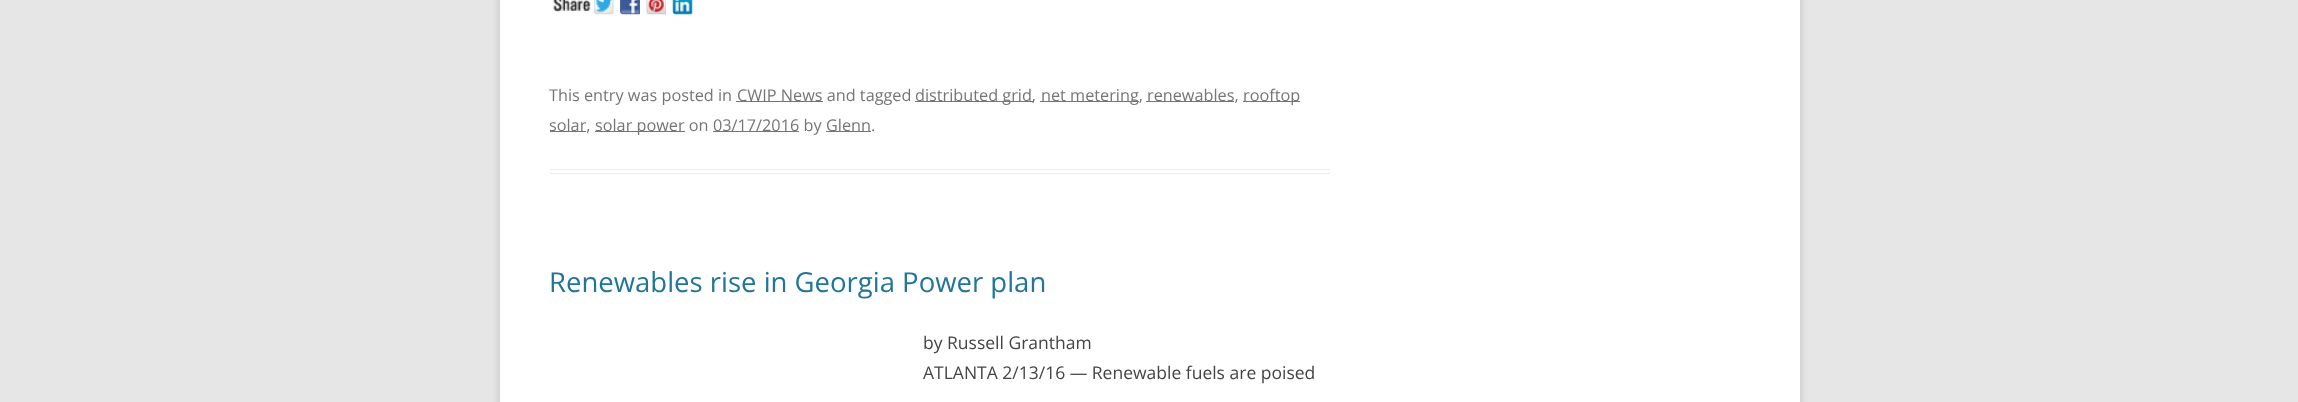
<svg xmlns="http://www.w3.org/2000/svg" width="2298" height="402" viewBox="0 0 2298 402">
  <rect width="100%" height="100%" fill="#e6e6e6"/>
  <path d="M500 -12h1300v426H500z" fill="#6464644d" filter="blur(4px)"/>
  <path d="M500 0h1300v402H500z" fill="#fff"/>
  <path d="M550 169h780v1H550z" fill="#ededed"/>
  <path d="M550 173h780v1H550z" fill="#ededed"/>
  <image x="553" y="0" width="38" height="13" href="img/1.png"/>
  <image x="594" y="0" width="20" height="15" href="img/2.png"/>
  <image x="620" y="0" width="20" height="15" href="img/3.png"/>
  <image x="646" y="0" width="20" height="15" href="img/4.png"/>
  <image x="672" y="0" width="21" height="15" href="img/5.png"/>
  <path d="M736 101h87v1H736z" fill="#757575"/>
  <path d="M915 101h118v1H915z" fill="#757575"/>
  <path d="M1040 101h99v1H1040z" fill="#757575"/>
  <path d="M1146 101h88v1H1146z" fill="#757575"/>
  <path d="M1243 101h57v1H1243z" fill="#757575"/>
  <path d="M550 131h36v1H550z" fill="#757575"/>
  <path d="M595 131h90v1H595z" fill="#757575"/>
  <path d="M713 131h86v1H713z" fill="#757575"/>
  <path d="M826 131h45v1H826z" fill="#757575"/>
  <g font-family="Open Sans" font-size="16.25" fill="#757575">
    <text x="549" y="101">This entry was posted in</text>
    <text x="737" y="101">CWIP News and tagged</text>
    <text x="915" y="101">distributed grid,</text>
    <text x="1041" y="101">net metering,</text>
    <text x="1147" y="101">renewables,</text>
    <text x="1243" y="101">rooftop</text>
    <text x="549" y="131">solar,</text>
    <text x="595" y="131">solar power on</text>
    <text x="713" y="131">03/17/2016 by</text>
    <text x="826" y="131">Glenn.</text>
  </g>
  <text x="549" y="292" font-family="Open Sans" font-size="27.5" fill="#21759b">Renewables rise in Georgia Power plan</text>
  <g font-family="Open Sans" font-size="17.5" fill="#444">
    <text x="923" y="349">by Russell Grantham</text>
    <text x="923" y="379">ATLANTA 2/13/16 — Renewable fuels are poised</text>
  </g>
</svg>
